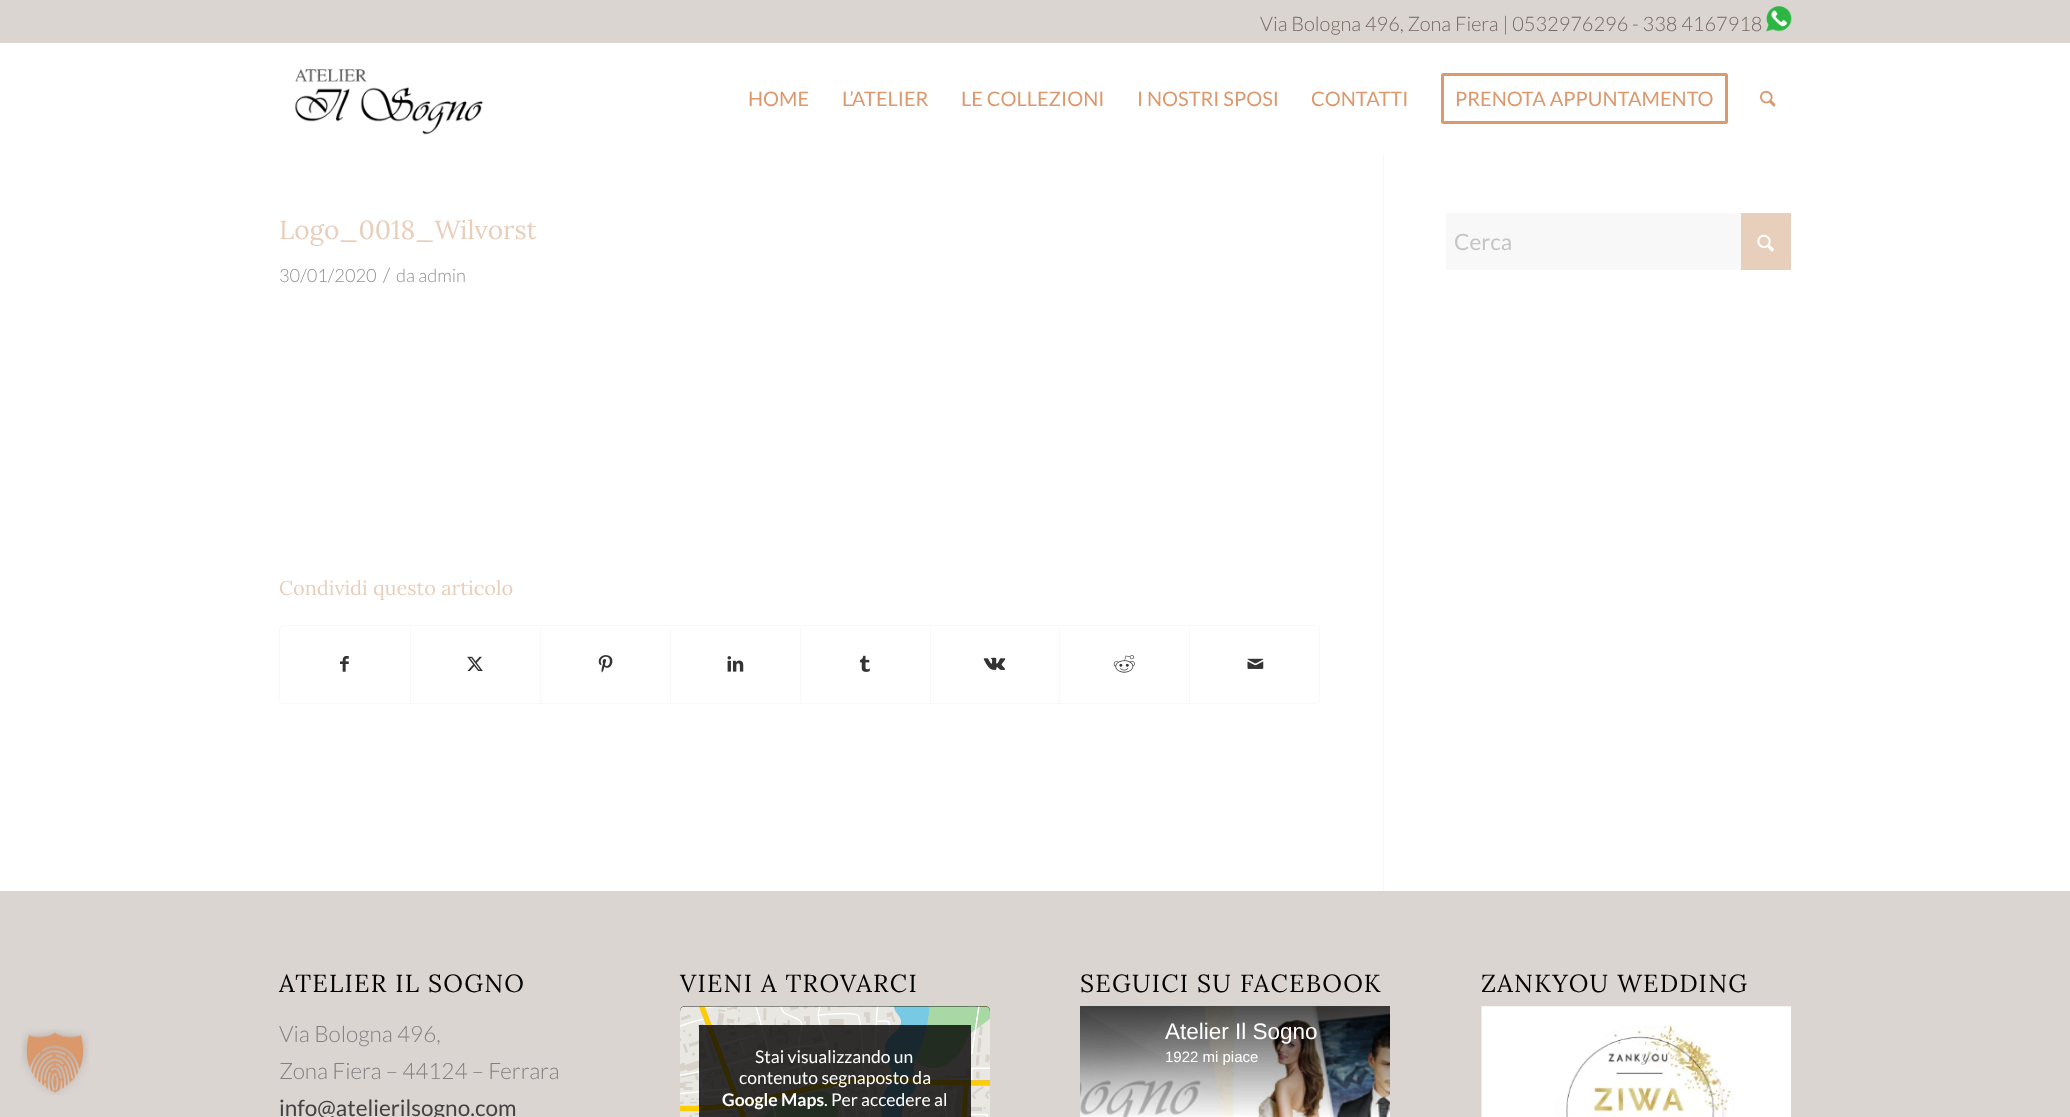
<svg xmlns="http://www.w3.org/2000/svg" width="2070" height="1117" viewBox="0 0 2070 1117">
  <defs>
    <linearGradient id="g1" gradientUnits="userSpaceOnUse" x1="1235" y1="1006" x2="1235" y2="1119"><stop offset="0" stop-color="#000" stop-opacity="0.7"/><stop offset="1" stop-color="#000" stop-opacity="0"/></linearGradient>
  </defs>
  <rect width="100%" height="100%" fill="#fff"/>
  <path d="M0 892h2070v225H0z" fill="#dbd5d2"/>
  <image x="21" y="1029" width="68" height="66" href="img/1.png"/>
  <path d="M0 0h2070v43H0z" fill="#dbd5d2"/>
  <image x="1766" y="6" width="26" height="26" href="img/2.png"/>
  <image x="294" y="69" width="189" height="66" href="img/3.png"/>
  <rect x="1442.5" y="74.5" width="284" height="48" rx="1" fill="none" stroke="#db996d" stroke-width="3"/>
  <image x="1760" y="90" width="15" height="17" href="img/4.png"/>
  <path d="M1383 150h1v741H1383z" fill="#f8f8f8"/>
  <path d="M1383 150h1v5H1383z" fill="#fff"/>
  <rect x="279.5" y="625.5" width="1040" height="78" rx="3.5" fill="none" stroke="#f8f8f8"/>
  <image x="340" y="656" width="9" height="16" href="img/5.png"/>
  <path d="M410 626h1v77H410z" fill="#f8f8f8"/>
  <image x="467" y="656" width="16" height="15" href="img/6.png"/>
  <path d="M540 626h1v77H540z" fill="#f8f8f8"/>
  <image x="598" y="655" width="15" height="18" href="img/7.png"/>
  <path d="M670 626h1v77H670z" fill="#f8f8f8"/>
  <image x="727" y="656" width="17" height="16" href="img/8.png"/>
  <path d="M800 626h1v77H800z" fill="#f8f8f8"/>
  <image x="860" y="655" width="10" height="17" href="img/9.png"/>
  <path d="M930 626h1v77H930z" fill="#f8f8f8"/>
  <image x="983" y="657" width="23" height="13" href="img/10.png"/>
  <path d="M1059 626h1v77H1059z" fill="#f8f8f8"/>
  <image x="1113" y="655" width="22" height="18" href="img/11.png"/>
  <path d="M1189 626h1v77H1189z" fill="#f8f8f8"/>
  <image x="1247" y="658" width="17" height="11" href="img/12.png"/>
  <path d="M1446 213h295v57H1446z" fill="#f8f8f8"/>
  <path d="M1741 213h50v57H1741z" fill="#e8cfbc"/>
  <image x="1757" y="234" width="17" height="18" href="img/13.png"/>
  <path d="M0 891h2070v1H0z" fill="#e8cfbc"/>
  <rect x="680" y="1006" width="310" height="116" rx="5" fill="#000"/>
  <image x="680" y="1006" width="310" height="111" href="img/14.png"/>
  <path d="M699 1025h272v92H699z" fill="#000000cc"/>
  <image x="1080" y="1006" width="310" height="111" href="img/15.png"/>
  <path d="M1080 1006h310v110H1080z" fill="url(#g1)"/>
  <image x="1481" y="1006" width="310" height="111" href="img/16.png"/>
  <text x="1260" y="31" font-family="Lato" font-size="20" font-weight="300" fill="#766862">Via Bologna 496, Zona Fiera | 0532976296 - 338 4167918</text>
  <g font-family="Lato" font-size="20" fill="#db996d">
    <text x="748" y="106">HOME</text>
    <text x="842" y="106">L’ATELIER</text>
    <text x="961" y="106">LE COLLEZIONI</text>
    <text x="1137" y="106">I NOSTRI SPOSI</text>
    <text x="1311" y="106">CONTATTI</text>
    <text x="1455" y="106">PRENOTA APPUNTAMENTO</text>
  </g>
  <text x="279" y="239" font-family="Lora" font-size="26.25" fill="#e8cfbc">Logo_0018_Wilvorst</text>
  <text x="279" y="282" font-family="Lato" font-size="18.25" font-weight="300" fill="#919191">30/01/2020</text>
  <text x="383" y="282" font-family="Lato" font-size="20" font-weight="300" fill="#919191">/</text>
  <text x="396" y="282" font-family="Lato" font-size="18.25" font-weight="300" fill="#919191">da admin</text>
  <text x="279" y="595" font-family="Lora" font-size="20" fill="#e8cfbc">Condividi questo articolo</text>
  <text x="1454" y="250" font-family="Lato" font-size="22.5" fill="#c5c5c5">Cerca</text>
  <text x="279" y="992" font-family="Lora" font-size="24.75" letter-spacing="1.25" fill="#000">ATELIER IL SOGNO</text>
  <g font-family="Lato" font-size="22.5" font-weight="300" fill="#808080">
    <text x="279" y="1042">Via Bologna 496,</text>
    <text x="279" y="1079">Zona Fiera – 44124 – Ferrara</text>
  </g>
  <text x="279" y="1116" font-family="Lato" font-size="22.5" fill="#424242">info@atelierilsogno.com</text>
  <text x="680" y="992" font-family="Lora" font-size="24.75" letter-spacing="1.25" fill="#000">VIENI A TROVARCI</text>
  <g font-family="Lato" font-size="17.5" fill="#fff">
    <text x="755" y="1063">Stai visualizzando un</text>
    <text x="739" y="1084">contenuto segnaposto da</text>
  </g>
  <text x="722" y="1106" font-family="Lato" font-size="17.5" font-weight="bold" fill="#fff">Google Maps</text>
  <text x="824" y="1106" font-family="Lato" font-size="17.5" fill="#fff">. Per accedere al</text>
  <text x="1080" y="992" font-family="Lora" font-size="24.75" letter-spacing="1.25" fill="#000">SEGUICI SU FACEBOOK</text>
  <text x="1165" y="1039" font-family="Liberation Sans" font-size="22.5" fill="#fff">Atelier Il Sogno</text>
  <text x="1165" y="1062" font-family="Liberation Sans" font-size="15" fill="#fff">1922 mi piace</text>
  <text x="1481" y="992" font-family="Lora" font-size="24.75" letter-spacing="1.25" fill="#000">ZANKYOU WEDDING</text>
</svg>
